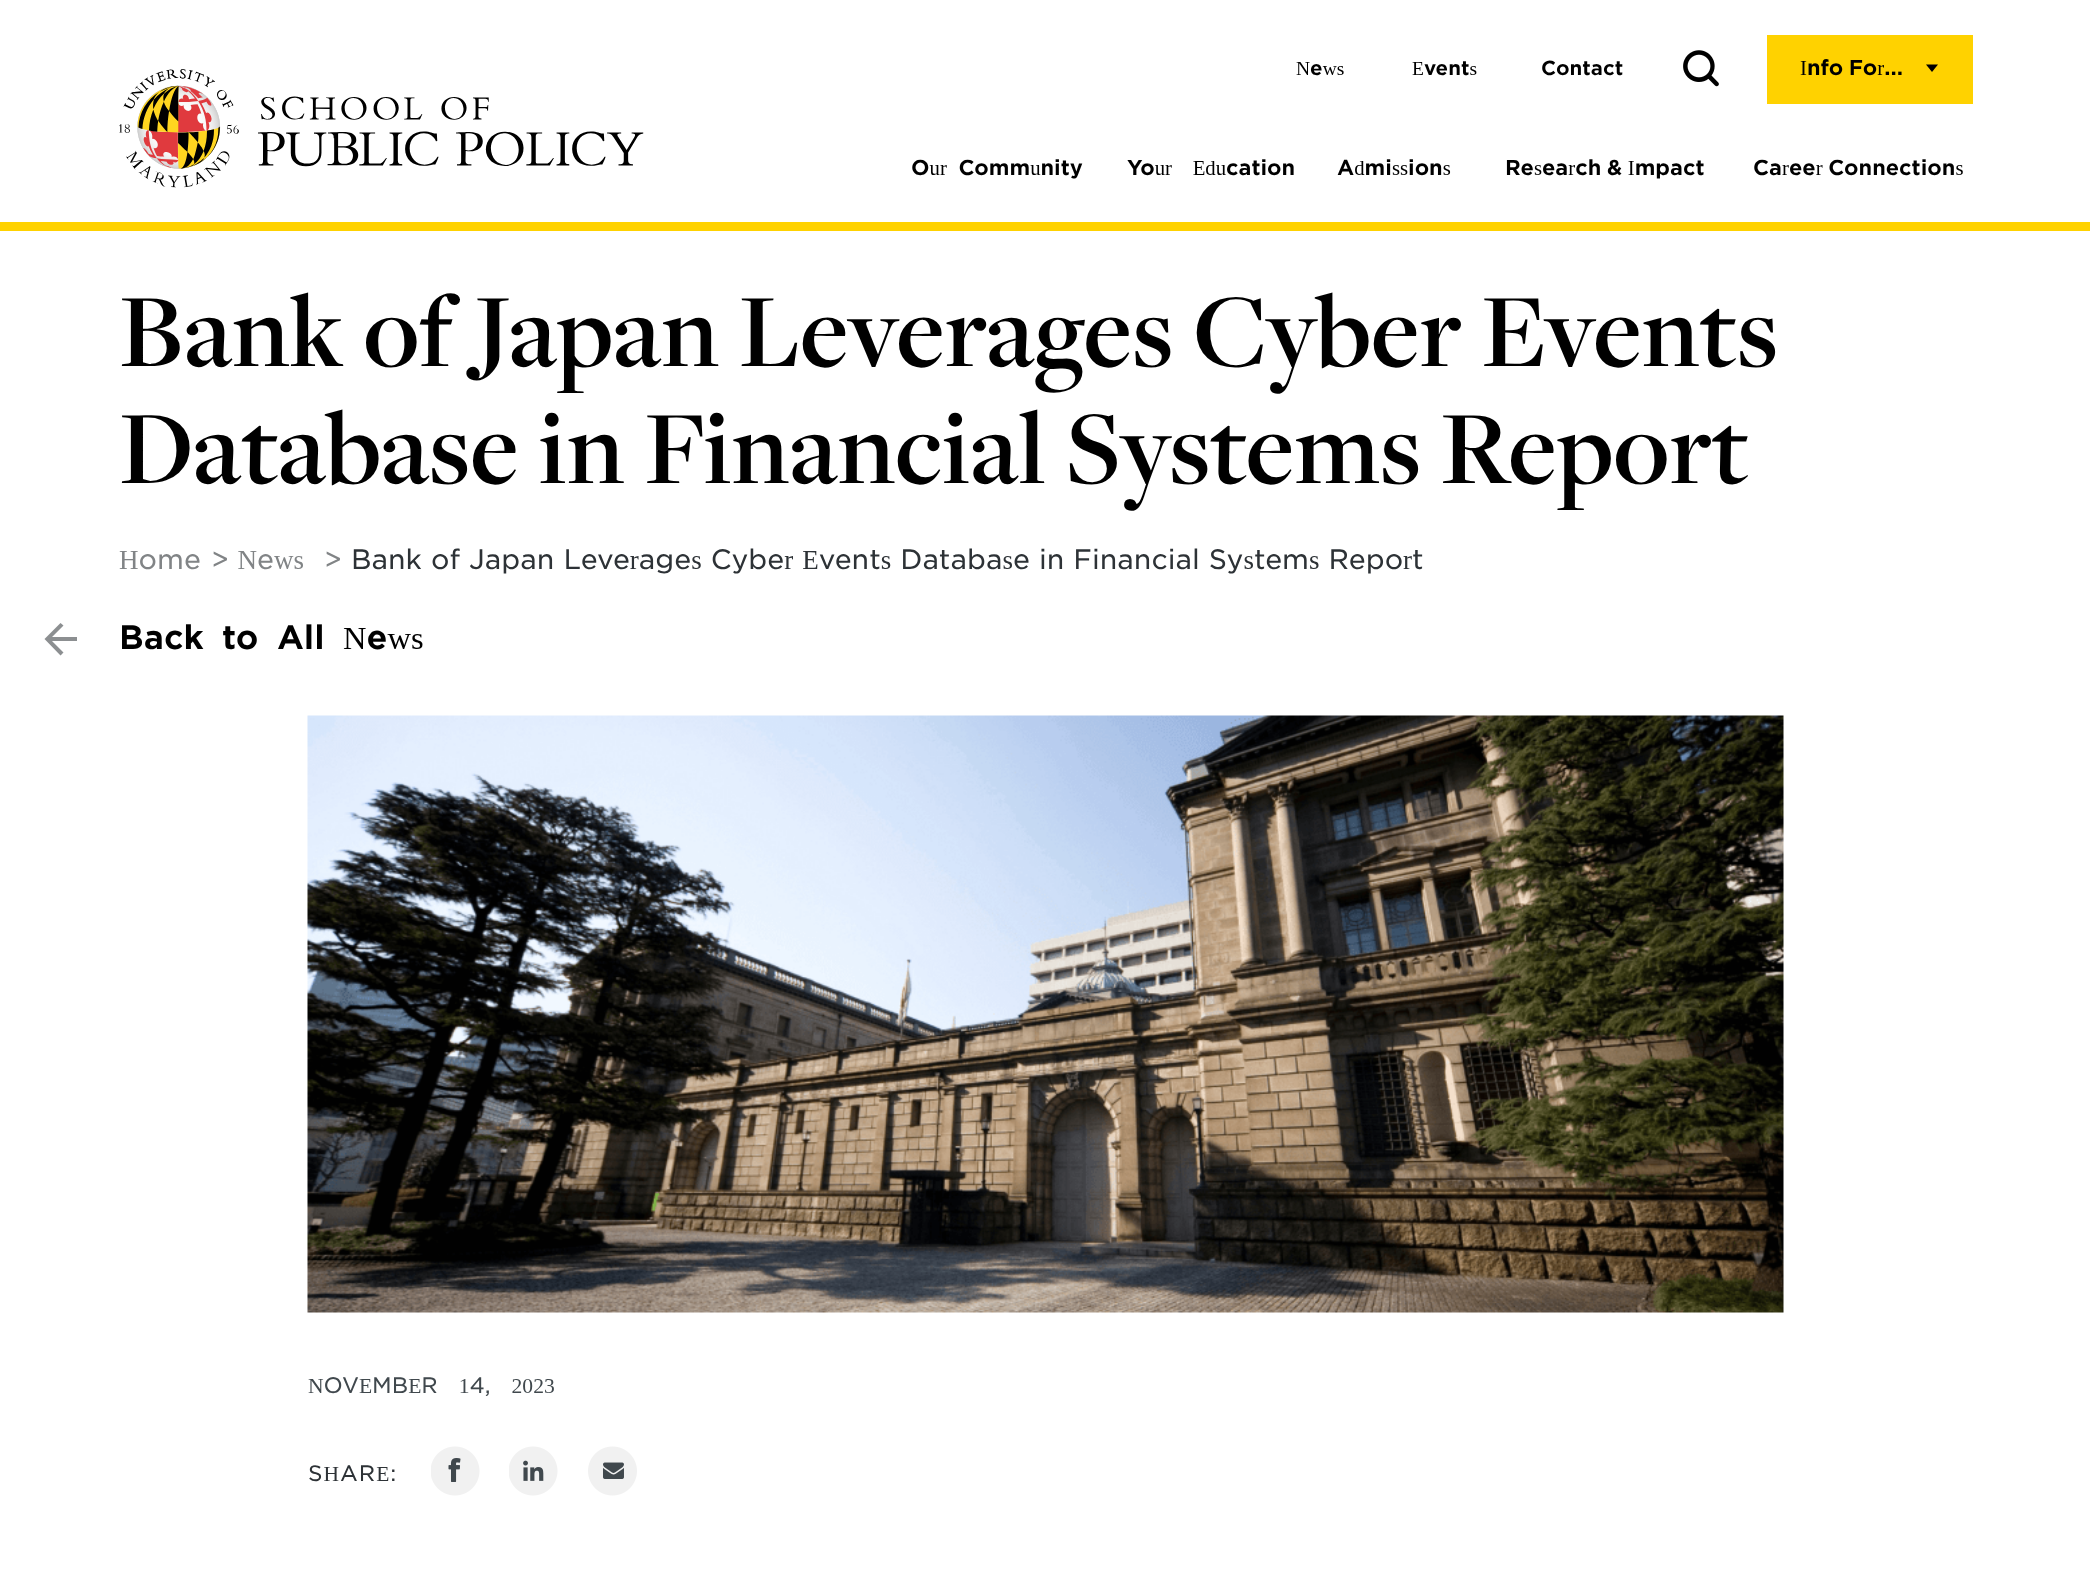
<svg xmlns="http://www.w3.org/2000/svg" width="2090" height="1571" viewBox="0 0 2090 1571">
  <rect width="100%" height="100%" fill="#fff"/>
  <path d="M0 222h2090v9H0z" fill="#ffd200"/>
  <image x="119" y="69" width="525" height="119" href="img/1.png"/>
  <image x="1683" y="50" width="36" height="37" href="img/2.png"/>
  <path d="M1767 35h206v69H1767z" fill="#ffd200"/>
  <path d="M1926 64.5H1938L1932 72Z" fill="#000"/>
  <path d="M60.5 655.5L63.5 652.5L52 641H77V637H52L63.5 625.5L60.5 623L44.5 639Z" fill="#8c8f91"/>
  <image x="307" y="715" width="1477" height="598" href="img/3.png"/>
  <image x="431" y="1446" width="49" height="50" href="img/4.png"/>
  <image x="509" y="1446" width="49" height="50" href="img/5.png"/>
  <image x="588" y="1446" width="49" height="50" href="img/6.png"/>
  <g font-family="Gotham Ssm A" font-size="19.5" fill="#000">
    <text x="1296" y="75">News</text>
    <text x="1412" y="75">Events</text>
    <text x="1541" y="75">Contact</text>
  </g>
  <g font-family="Gotham Ssm A" font-size="20.75" fill="#000">
    <text x="1800" y="75" word-spacing="-1">Info For...</text>
    <text x="911" y="175" word-spacing="5">Our Community</text>
    <text x="1127" y="175" word-spacing="14">Your Education</text>
    <text x="1337" y="175">Admissions</text>
    <text x="1505" y="175" word-spacing="-1">Research &amp; Impact</text>
    <text x="1753" y="175" word-spacing="-1">Career Connections</text>
  </g>
  <g font-family="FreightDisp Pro" font-size="108" font-weight="600" letter-spacing="0.25" fill="#000">
    <text x="119" y="366">Bank of Japan Leverages Cyber Events</text>
    <text x="119" y="483">Database in Financial Systems Report</text>
  </g>
  <g font-family="Gotham Ssm A" font-size="27" font-weight="300" fill="#818486">
    <text x="119" y="569">Home</text>
    <text x="211" y="569">&gt; News</text>
    <text x="324" y="569">&gt;</text>
  </g>
  <text x="351" y="569" word-spacing="0.4" font-family="Gotham Ssm A" font-size="27" font-weight="300" fill="#2d3236">Bank of Japan Leverages Cyber Events Database in Financial Systems Report</text>
  <text x="119" y="649" word-spacing="8" font-family="Gotham Ssm A" font-size="32.5" fill="#000">Back to All News</text>
  <text x="308" y="1393" word-spacing="14" font-family="Gotham Ssm A" font-size="21.6" font-weight="300" fill="#40484d">NOVEMBER 14, 2023</text>
  <text x="308" y="1481" font-family="Gotham Ssm A" font-size="21.5" font-weight="300" letter-spacing="1" fill="#2d3236">SHARE:</text>
</svg>
